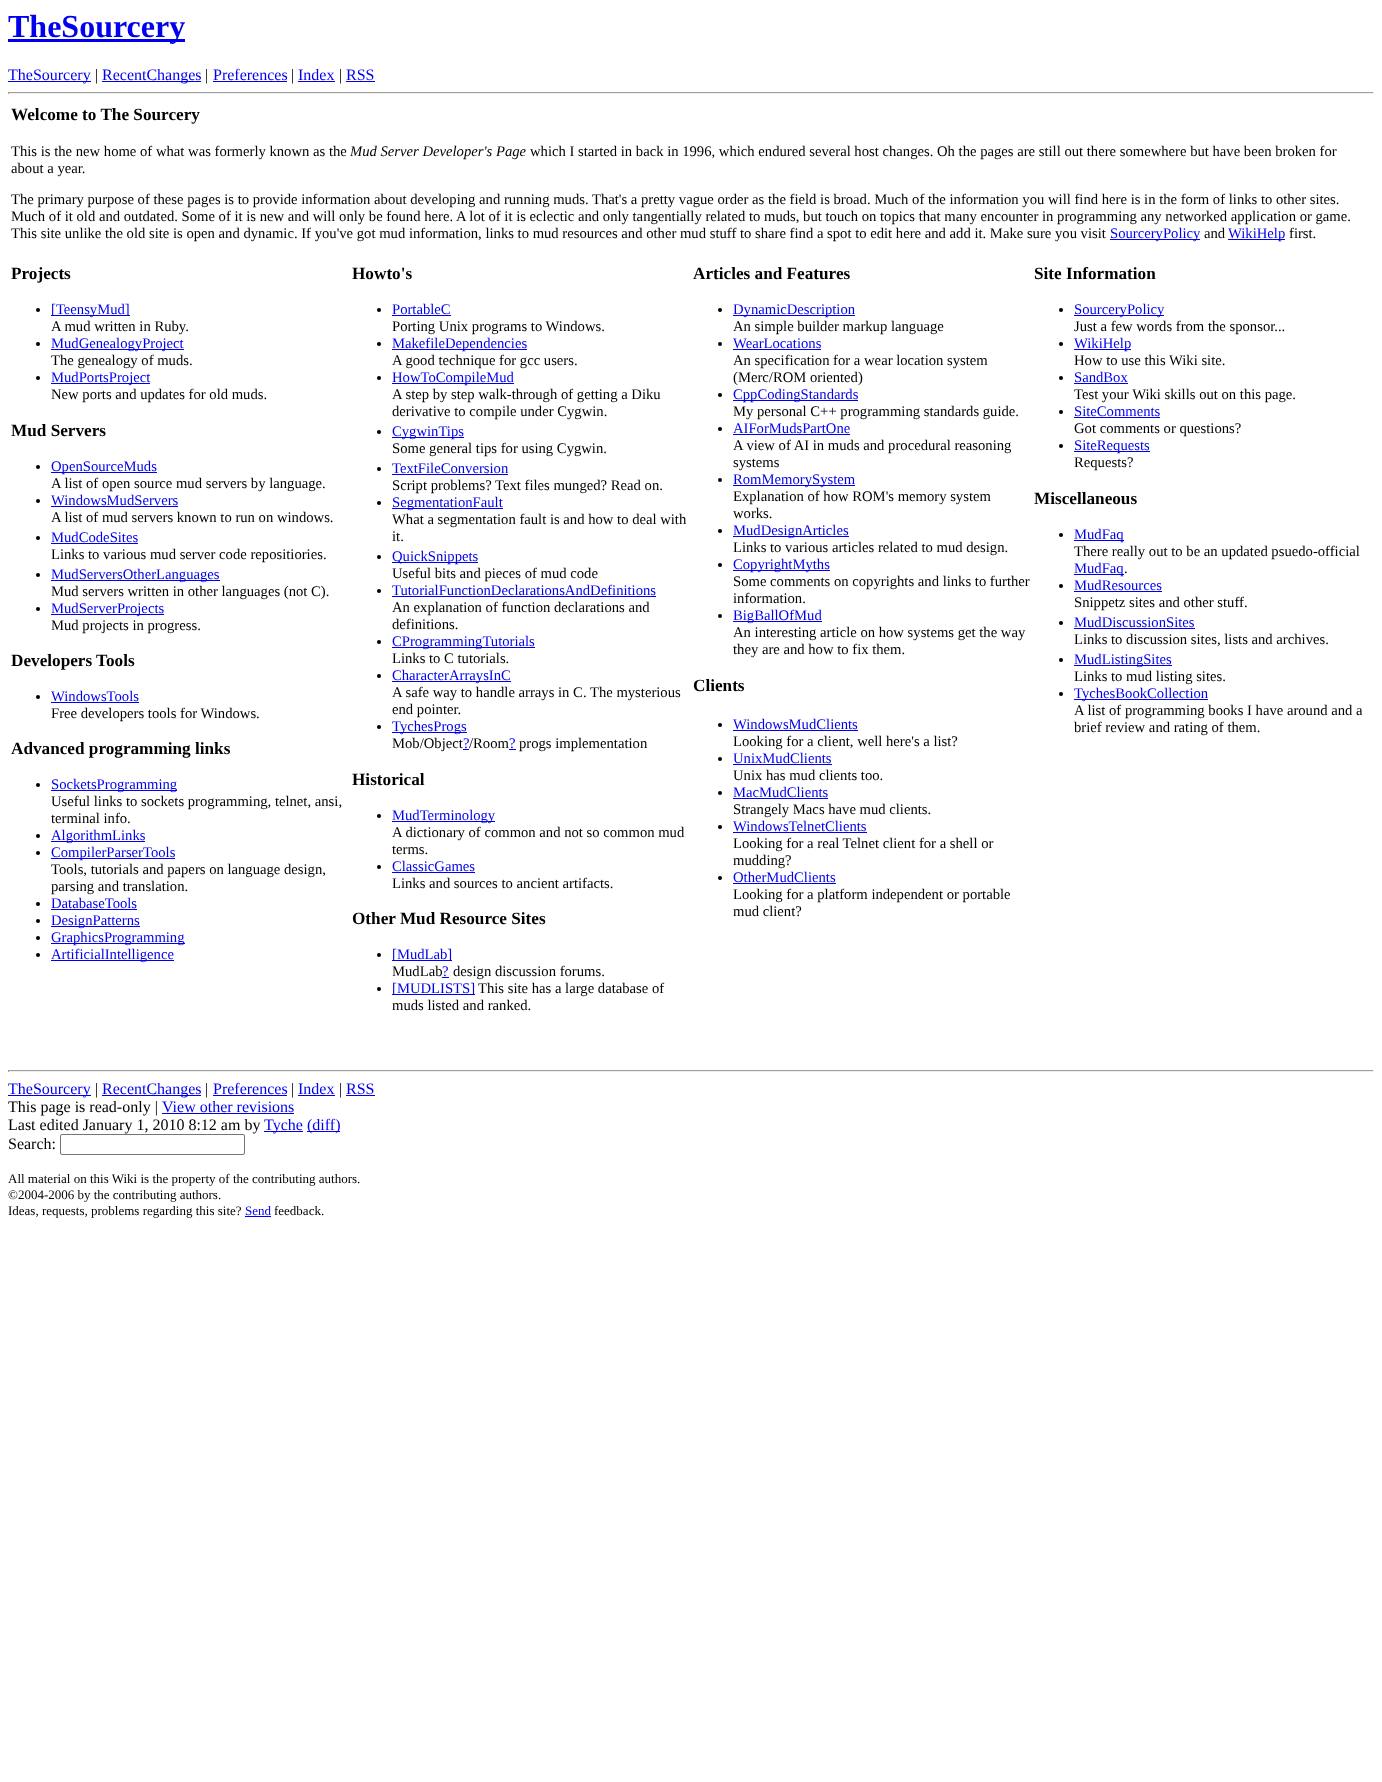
<svg xmlns="http://www.w3.org/2000/svg" width="1382" height="1782" viewBox="0 0 1382 1782">
  <rect width="100%" height="100%" fill="#fff"/>
  <path d="M8 39h177v3H8z" fill="#00e"/>
  <path d="M8 81h83v1H8z" fill="#00e"/>
  <path d="M102 81h99v1H102z" fill="#00e"/>
  <path d="M213 81h74v1H213z" fill="#00e"/>
  <path d="M298 81h37v1H298z" fill="#00e"/>
  <path d="M346 81h29v1H346z" fill="#00e"/>
  <path d="M8 92h1366v1H8z" fill="#9f9f9f"/>
  <path d="M1373 92h1v2H1373z" fill="#eee"/>
  <path d="M8 93h1366v1H8z" fill="#eee"/>
  <path d="M8 92h1v2H8z" fill="#9f9f9f"/>
  <path d="M1110 239h90v1H1110z" fill="#00e"/>
  <path d="M1228 239h57v1H1228z" fill="#00e"/>
  <circle cx="38" cy="310" r="2" fill="#000"/>
  <path d="M51 315h79v1H51z" fill="#00e"/>
  <circle cx="38" cy="344" r="2" fill="#000"/>
  <path d="M51 349h133v1H51z" fill="#00e"/>
  <circle cx="38" cy="378" r="2" fill="#000"/>
  <path d="M51 383h99v1H51z" fill="#00e"/>
  <circle cx="38" cy="467" r="2" fill="#000"/>
  <path d="M51 472h106v1H51z" fill="#00e"/>
  <circle cx="38" cy="501" r="2" fill="#000"/>
  <path d="M51 506h127v1H51z" fill="#00e"/>
  <circle cx="38" cy="538" r="2" fill="#000"/>
  <path d="M51 543h87v1H51z" fill="#00e"/>
  <circle cx="38" cy="575" r="2" fill="#000"/>
  <path d="M51 580h169v1H51z" fill="#00e"/>
  <circle cx="38" cy="609" r="2" fill="#000"/>
  <path d="M51 614h113v1H51z" fill="#00e"/>
  <circle cx="38" cy="697" r="2" fill="#000"/>
  <path d="M51 702h88v1H51z" fill="#00e"/>
  <circle cx="38" cy="785" r="2" fill="#000"/>
  <path d="M51 790h126v1H51z" fill="#00e"/>
  <circle cx="38" cy="836" r="2" fill="#000"/>
  <path d="M51 841h94v1H51z" fill="#00e"/>
  <circle cx="38" cy="853" r="2" fill="#000"/>
  <path d="M51 858h124v1H51z" fill="#00e"/>
  <circle cx="38" cy="904" r="2" fill="#000"/>
  <path d="M51 909h86v1H51z" fill="#00e"/>
  <circle cx="38" cy="921" r="2" fill="#000"/>
  <path d="M51 926h89v1H51z" fill="#00e"/>
  <circle cx="38" cy="938" r="2" fill="#000"/>
  <path d="M51 943h134v1H51z" fill="#00e"/>
  <circle cx="38" cy="955" r="2" fill="#000"/>
  <path d="M51 960h123v1H51z" fill="#00e"/>
  <circle cx="379" cy="310" r="2" fill="#000"/>
  <path d="M392 315h59v1H392z" fill="#00e"/>
  <circle cx="379" cy="344" r="2" fill="#000"/>
  <path d="M392 349h135v1H392z" fill="#00e"/>
  <circle cx="379" cy="378" r="2" fill="#000"/>
  <path d="M392 383h122v1H392z" fill="#00e"/>
  <circle cx="379" cy="432" r="2" fill="#000"/>
  <path d="M392 437h72v1H392z" fill="#00e"/>
  <circle cx="379" cy="469" r="2" fill="#000"/>
  <path d="M392 474h116v1H392z" fill="#00e"/>
  <circle cx="379" cy="503" r="2" fill="#000"/>
  <path d="M392 508h111v1H392z" fill="#00e"/>
  <circle cx="379" cy="557" r="2" fill="#000"/>
  <path d="M392 562h86v1H392z" fill="#00e"/>
  <circle cx="379" cy="591" r="2" fill="#000"/>
  <path d="M392 596h264v1H392z" fill="#00e"/>
  <circle cx="379" cy="642" r="2" fill="#000"/>
  <path d="M392 647h143v1H392z" fill="#00e"/>
  <circle cx="379" cy="676" r="2" fill="#000"/>
  <path d="M392 681h119v1H392z" fill="#00e"/>
  <circle cx="379" cy="727" r="2" fill="#000"/>
  <path d="M392 732h75v1H392z" fill="#00e"/>
  <path d="M463 749h6v1H463z" fill="#00e"/>
  <path d="M509 749h7v1H509z" fill="#00e"/>
  <circle cx="379" cy="816" r="2" fill="#000"/>
  <path d="M392 821h103v1H392z" fill="#00e"/>
  <circle cx="379" cy="867" r="2" fill="#000"/>
  <path d="M392 872h83v1H392z" fill="#00e"/>
  <circle cx="379" cy="955" r="2" fill="#000"/>
  <path d="M392 960h60v1H392z" fill="#00e"/>
  <path d="M442 977h7v1H442z" fill="#00e"/>
  <circle cx="379" cy="989" r="2" fill="#000"/>
  <path d="M392 994h83v1H392z" fill="#00e"/>
  <circle cx="720" cy="310" r="2" fill="#000"/>
  <path d="M733 315h122v1H733z" fill="#00e"/>
  <circle cx="720" cy="344" r="2" fill="#000"/>
  <path d="M733 349h88v1H733z" fill="#00e"/>
  <circle cx="720" cy="395" r="2" fill="#000"/>
  <path d="M733 400h125v1H733z" fill="#00e"/>
  <circle cx="720" cy="429" r="2" fill="#000"/>
  <path d="M733 434h117v1H733z" fill="#00e"/>
  <circle cx="720" cy="480" r="2" fill="#000"/>
  <path d="M733 485h122v1H733z" fill="#00e"/>
  <circle cx="720" cy="531" r="2" fill="#000"/>
  <path d="M733 536h116v1H733z" fill="#00e"/>
  <circle cx="720" cy="565" r="2" fill="#000"/>
  <path d="M733 570h97v1H733z" fill="#00e"/>
  <circle cx="720" cy="616" r="2" fill="#000"/>
  <path d="M733 621h89v1H733z" fill="#00e"/>
  <circle cx="720" cy="725" r="2" fill="#000"/>
  <path d="M733 730h125v1H733z" fill="#00e"/>
  <circle cx="720" cy="759" r="2" fill="#000"/>
  <path d="M733 764h99v1H733z" fill="#00e"/>
  <circle cx="720" cy="793" r="2" fill="#000"/>
  <path d="M733 798h95v1H733z" fill="#00e"/>
  <circle cx="720" cy="827" r="2" fill="#000"/>
  <path d="M733 832h134v1H733z" fill="#00e"/>
  <circle cx="720" cy="878" r="2" fill="#000"/>
  <path d="M733 883h103v1H733z" fill="#00e"/>
  <circle cx="1061" cy="310" r="2" fill="#000"/>
  <path d="M1074 315h90v1H1074z" fill="#00e"/>
  <circle cx="1061" cy="344" r="2" fill="#000"/>
  <path d="M1074 349h57v1H1074z" fill="#00e"/>
  <circle cx="1061" cy="378" r="2" fill="#000"/>
  <path d="M1074 383h54v1H1074z" fill="#00e"/>
  <circle cx="1061" cy="412" r="2" fill="#000"/>
  <path d="M1074 417h86v1H1074z" fill="#00e"/>
  <circle cx="1061" cy="446" r="2" fill="#000"/>
  <path d="M1074 451h76v1H1074z" fill="#00e"/>
  <circle cx="1061" cy="535" r="2" fill="#000"/>
  <path d="M1074 540h50v1H1074z" fill="#00e"/>
  <path d="M1074 574h50v1H1074z" fill="#00e"/>
  <circle cx="1061" cy="586" r="2" fill="#000"/>
  <path d="M1074 591h88v1H1074z" fill="#00e"/>
  <circle cx="1061" cy="623" r="2" fill="#000"/>
  <path d="M1074 628h121v1H1074z" fill="#00e"/>
  <circle cx="1061" cy="660" r="2" fill="#000"/>
  <path d="M1074 665h98v1H1074z" fill="#00e"/>
  <circle cx="1061" cy="694" r="2" fill="#000"/>
  <path d="M1074 699h134v1H1074z" fill="#00e"/>
  <path d="M8 1070h1366v1H8z" fill="#9f9f9f"/>
  <path d="M1373 1070h1v2H1373z" fill="#eee"/>
  <path d="M8 1071h1366v1H8z" fill="#eee"/>
  <path d="M8 1070h1v2H8z" fill="#9f9f9f"/>
  <path d="M8 1095h83v1H8z" fill="#00e"/>
  <path d="M102 1095h99v1H102z" fill="#00e"/>
  <path d="M213 1095h74v1H213z" fill="#00e"/>
  <path d="M298 1095h37v1H298z" fill="#00e"/>
  <path d="M346 1095h29v1H346z" fill="#00e"/>
  <path d="M162 1113h132v1H162z" fill="#00e"/>
  <path d="M264 1131h39v1H264z" fill="#00e"/>
  <path d="M307 1131h33v1H307z" fill="#00e"/>
  <rect x="60.5" y="1134.5" width="184" height="20" rx="1.5" fill="none" stroke="#767676"/>
  <path d="M245 1216h26v1H245z" fill="#00e"/>
  <text x="8" y="37" font-family="Liberation Serif" font-size="32" font-weight="bold" fill="#00e">TheSourcery</text>
  <text x="8" y="80" font-family="Liberation Serif" font-size="16" fill="#00e">TheSourcery</text>
  <text x="95" y="80" font-family="Liberation Serif" font-size="16" fill="#000">|</text>
  <text x="102" y="80" font-family="Liberation Serif" font-size="16" fill="#00e">RecentChanges</text>
  <text x="205" y="80" font-family="Liberation Serif" font-size="16" fill="#000">|</text>
  <text x="213" y="80" font-family="Liberation Serif" font-size="16" fill="#00e">Preferences</text>
  <text x="291" y="80" font-family="Liberation Serif" font-size="16" fill="#000">|</text>
  <text x="298" y="80" font-family="Liberation Serif" font-size="16" fill="#00e">Index</text>
  <text x="339" y="80" font-family="Liberation Serif" font-size="16" fill="#000">|</text>
  <text x="346" y="80" font-family="Liberation Serif" font-size="16" fill="#00e">RSS</text>
  <text x="11" y="120" font-family="Liberation Serif" font-size="17.2" font-weight="bold" fill="#000">Welcome to The Sourcery</text>
  <text x="11" y="156" font-family="Liberation Serif" font-size="14.67" fill="#000">This is the new home of what was formerly known as the</text>
  <text x="350" y="156" font-family="Liberation Serif" font-size="14.67" font-style="italic" fill="#000">Mud Server Developer's Page</text>
  <g font-family="Liberation Serif" font-size="14.67" fill="#000">
    <text x="530" y="156">which I started in back in 1996, which endured several host changes. Oh the pages are still out there somewhere but have been broken for</text>
    <text x="11" y="173">about a year.</text>
    <text x="11" y="204">The primary purpose of these pages is to provide information about developing and running muds. That's a pretty vague order as the field is broad. Much of the information you will find here is in the form of links to other sites.</text>
    <text x="11" y="221">Much of it old and outdated. Some of it is new and will only be found here. A lot of it is eclectic and only tangentially related to muds, but touch on topics that many encounter in programming any networked application or game.</text>
    <text x="11" y="238">This site unlike the old site is open and dynamic. If you've got mud information, links to mud resources and other mud stuff to share find a spot to edit here and add it. Make sure you visit</text>
  </g>
  <text x="1110" y="238" font-family="Liberation Serif" font-size="14.67" fill="#00e">SourceryPolicy</text>
  <text x="1204" y="238" font-family="Liberation Serif" font-size="14.67" fill="#000">and</text>
  <text x="1228" y="238" font-family="Liberation Serif" font-size="14.67" fill="#00e">WikiHelp</text>
  <text x="1289" y="238" font-family="Liberation Serif" font-size="14.67" fill="#000">first.</text>
  <text x="11" y="279" font-family="Liberation Serif" font-size="17.2" font-weight="bold" fill="#000">Projects</text>
  <text x="51" y="314" font-family="Liberation Serif" font-size="14.67" fill="#00e">[TeensyMud]</text>
  <text x="51" y="331" font-family="Liberation Serif" font-size="14.67" fill="#000">A mud written in Ruby.</text>
  <text x="51" y="348" font-family="Liberation Serif" font-size="14.67" fill="#00e">MudGenealogyProject</text>
  <text x="51" y="365" font-family="Liberation Serif" font-size="14.67" fill="#000">The genealogy of muds.</text>
  <text x="51" y="382" font-family="Liberation Serif" font-size="14.67" fill="#00e">MudPortsProject</text>
  <text x="51" y="399" font-family="Liberation Serif" font-size="14.67" fill="#000">New ports and updates for old muds.</text>
  <text x="11" y="436" font-family="Liberation Serif" font-size="17.2" font-weight="bold" fill="#000">Mud Servers</text>
  <text x="51" y="471" font-family="Liberation Serif" font-size="14.67" fill="#00e">OpenSourceMuds</text>
  <text x="51" y="488" font-family="Liberation Serif" font-size="14.67" fill="#000">A list of open source mud servers by language.</text>
  <text x="51" y="505" font-family="Liberation Serif" font-size="14.67" fill="#00e">WindowsMudServers</text>
  <text x="51" y="522" font-family="Liberation Serif" font-size="14.67" fill="#000">A list of mud servers known to run on windows.</text>
  <text x="51" y="542" font-family="Liberation Serif" font-size="14.67" fill="#00e">MudCodeSites</text>
  <text x="51" y="559" font-family="Liberation Serif" font-size="14.67" fill="#000">Links to various mud server code repositiories.</text>
  <text x="51" y="579" font-family="Liberation Serif" font-size="14.67" fill="#00e">MudServersOtherLanguages</text>
  <text x="51" y="596" font-family="Liberation Serif" font-size="14.67" fill="#000">Mud servers written in other languages (not C).</text>
  <text x="51" y="613" font-family="Liberation Serif" font-size="14.67" fill="#00e">MudServerProjects</text>
  <text x="51" y="630" font-family="Liberation Serif" font-size="14.67" fill="#000">Mud projects in progress.</text>
  <text x="11" y="666" font-family="Liberation Serif" font-size="17.2" font-weight="bold" fill="#000">Developers Tools</text>
  <text x="51" y="701" font-family="Liberation Serif" font-size="14.67" fill="#00e">WindowsTools</text>
  <text x="51" y="718" font-family="Liberation Serif" font-size="14.67" fill="#000">Free developers tools for Windows.</text>
  <text x="11" y="754" font-family="Liberation Serif" font-size="17.2" font-weight="bold" fill="#000">Advanced programming links</text>
  <text x="51" y="789" font-family="Liberation Serif" font-size="14.67" fill="#00e">SocketsProgramming</text>
  <g font-family="Liberation Serif" font-size="14.67" fill="#000">
    <text x="51" y="806">Useful links to sockets programming, telnet, ansi,</text>
    <text x="51" y="823">terminal info.</text>
  </g>
  <g font-family="Liberation Serif" font-size="14.67" fill="#00e">
    <text x="51" y="840">AlgorithmLinks</text>
    <text x="51" y="857">CompilerParserTools</text>
  </g>
  <g font-family="Liberation Serif" font-size="14.67" fill="#000">
    <text x="51" y="874">Tools, tutorials and papers on language design,</text>
    <text x="51" y="891">parsing and translation.</text>
  </g>
  <g font-family="Liberation Serif" font-size="14.67" fill="#00e">
    <text x="51" y="908">DatabaseTools</text>
    <text x="51" y="925">DesignPatterns</text>
    <text x="51" y="942">GraphicsProgramming</text>
    <text x="51" y="959">ArtificialIntelligence</text>
  </g>
  <text x="352" y="279" font-family="Liberation Serif" font-size="17.2" font-weight="bold" fill="#000">Howto's</text>
  <text x="392" y="314" font-family="Liberation Serif" font-size="14.67" fill="#00e">PortableC</text>
  <text x="392" y="331" font-family="Liberation Serif" font-size="14.67" fill="#000">Porting Unix programs to Windows.</text>
  <text x="392" y="348" font-family="Liberation Serif" font-size="14.67" fill="#00e">MakefileDependencies</text>
  <text x="392" y="365" font-family="Liberation Serif" font-size="14.67" fill="#000">A good technique for gcc users.</text>
  <text x="392" y="382" font-family="Liberation Serif" font-size="14.67" fill="#00e">HowToCompileMud</text>
  <g font-family="Liberation Serif" font-size="14.67" fill="#000">
    <text x="392" y="399">A step by step walk-through of getting a Diku</text>
    <text x="392" y="416">derivative to compile under Cygwin.</text>
  </g>
  <text x="392" y="436" font-family="Liberation Serif" font-size="14.67" fill="#00e">CygwinTips</text>
  <text x="392" y="453" font-family="Liberation Serif" font-size="14.67" fill="#000">Some general tips for using Cygwin.</text>
  <text x="392" y="473" font-family="Liberation Serif" font-size="14.67" fill="#00e">TextFileConversion</text>
  <g font-family="Liberation Serif" font-size="14.67" fill="#000">
    <text x="392" y="490">Script problems?</text>
    <text x="495" y="490">Text files munged? Read on.</text>
  </g>
  <text x="392" y="507" font-family="Liberation Serif" font-size="14.67" fill="#00e">SegmentationFault</text>
  <g font-family="Liberation Serif" font-size="14.67" fill="#000">
    <text x="392" y="524">What a segmentation fault is and how to deal with</text>
    <text x="392" y="541">it.</text>
  </g>
  <text x="392" y="561" font-family="Liberation Serif" font-size="14.67" fill="#00e">QuickSnippets</text>
  <text x="392" y="578" font-family="Liberation Serif" font-size="14.67" fill="#000">Useful bits and pieces of mud code</text>
  <text x="392" y="595" font-family="Liberation Serif" font-size="14.67" fill="#00e">TutorialFunctionDeclarationsAndDefinitions</text>
  <g font-family="Liberation Serif" font-size="14.67" fill="#000">
    <text x="392" y="612">An explanation of function declarations and</text>
    <text x="392" y="629">definitions.</text>
  </g>
  <text x="392" y="646" font-family="Liberation Serif" font-size="14.67" fill="#00e">CProgrammingTutorials</text>
  <text x="392" y="663" font-family="Liberation Serif" font-size="14.67" fill="#000">Links to C tutorials.</text>
  <text x="392" y="680" font-family="Liberation Serif" font-size="14.67" fill="#00e">CharacterArraysInC</text>
  <g font-family="Liberation Serif" font-size="14.67" fill="#000">
    <text x="392" y="697">A safe way to handle arrays in C. The mysterious</text>
    <text x="392" y="714">end pointer.</text>
  </g>
  <text x="392" y="731" font-family="Liberation Serif" font-size="14.67" fill="#00e">TychesProgs</text>
  <text x="392" y="748" font-family="Liberation Serif" font-size="14.67" fill="#000">Mob/Object</text>
  <text x="463" y="748" font-family="Liberation Serif" font-size="14.67" fill="#00e">?</text>
  <text x="469" y="748" font-family="Liberation Serif" font-size="14.67" fill="#000">/Room</text>
  <text x="509" y="748" font-family="Liberation Serif" font-size="14.67" fill="#00e">?</text>
  <text x="519" y="748" font-family="Liberation Serif" font-size="14.67" fill="#000">progs implementation</text>
  <text x="352" y="785" font-family="Liberation Serif" font-size="17.2" font-weight="bold" fill="#000">Historical</text>
  <text x="392" y="820" font-family="Liberation Serif" font-size="14.67" fill="#00e">MudTerminology</text>
  <g font-family="Liberation Serif" font-size="14.67" fill="#000">
    <text x="392" y="837">A dictionary of common and not so common mud</text>
    <text x="392" y="854">terms.</text>
  </g>
  <text x="392" y="871" font-family="Liberation Serif" font-size="14.67" fill="#00e">ClassicGames</text>
  <text x="392" y="888" font-family="Liberation Serif" font-size="14.67" fill="#000">Links and sources to ancient artifacts.</text>
  <text x="352" y="924" font-family="Liberation Serif" font-size="17.2" font-weight="bold" fill="#000">Other Mud Resource Sites</text>
  <text x="392" y="959" font-family="Liberation Serif" font-size="14.67" fill="#00e">[MudLab]</text>
  <text x="392" y="976" font-family="Liberation Serif" font-size="14.67" fill="#000">MudLab</text>
  <text x="442" y="976" font-family="Liberation Serif" font-size="14.67" fill="#00e">?</text>
  <text x="453" y="976" font-family="Liberation Serif" font-size="14.67" fill="#000">design discussion forums.</text>
  <text x="392" y="993" font-family="Liberation Serif" font-size="14.67" fill="#00e">[MUDLISTS]</text>
  <g font-family="Liberation Serif" font-size="14.67" fill="#000">
    <text x="478" y="993">This site has a large database of</text>
    <text x="392" y="1010">muds listed and ranked.</text>
  </g>
  <text x="693" y="279" font-family="Liberation Serif" font-size="17.2" font-weight="bold" fill="#000">Articles and Features</text>
  <text x="733" y="314" font-family="Liberation Serif" font-size="14.67" fill="#00e">DynamicDescription</text>
  <text x="733" y="331" font-family="Liberation Serif" font-size="14.67" fill="#000">An simple builder markup language</text>
  <text x="733" y="348" font-family="Liberation Serif" font-size="14.67" fill="#00e">WearLocations</text>
  <g font-family="Liberation Serif" font-size="14.67" fill="#000">
    <text x="733" y="365">An specification for a wear location system</text>
    <text x="733" y="382">(Merc/ROM oriented)</text>
  </g>
  <text x="733" y="399" font-family="Liberation Serif" font-size="14.67" fill="#00e">CppCodingStandards</text>
  <text x="733" y="416" font-family="Liberation Serif" font-size="14.67" fill="#000">My personal C++ programming standards guide.</text>
  <text x="733" y="433" font-family="Liberation Serif" font-size="14.67" fill="#00e">AIForMudsPartOne</text>
  <g font-family="Liberation Serif" font-size="14.67" fill="#000">
    <text x="733" y="450">A view of AI in muds and procedural reasoning</text>
    <text x="733" y="467">systems</text>
  </g>
  <text x="733" y="484" font-family="Liberation Serif" font-size="14.67" fill="#00e">RomMemorySystem</text>
  <g font-family="Liberation Serif" font-size="14.67" fill="#000">
    <text x="733" y="501">Explanation of how ROM's memory system</text>
    <text x="733" y="518">works.</text>
  </g>
  <text x="733" y="535" font-family="Liberation Serif" font-size="14.67" fill="#00e">MudDesignArticles</text>
  <text x="733" y="552" font-family="Liberation Serif" font-size="14.67" fill="#000">Links to various articles related to mud design.</text>
  <text x="733" y="569" font-family="Liberation Serif" font-size="14.67" fill="#00e">CopyrightMyths</text>
  <g font-family="Liberation Serif" font-size="14.67" fill="#000">
    <text x="733" y="586">Some comments on copyrights and links to further</text>
    <text x="733" y="603">information.</text>
  </g>
  <text x="733" y="620" font-family="Liberation Serif" font-size="14.67" fill="#00e">BigBallOfMud</text>
  <g font-family="Liberation Serif" font-size="14.67" fill="#000">
    <text x="733" y="637">An interesting article on how systems get the way</text>
    <text x="733" y="654">they are and how to fix them.</text>
  </g>
  <text x="693" y="691" font-family="Liberation Serif" font-size="17.2" font-weight="bold" fill="#000">Clients</text>
  <text x="733" y="729" font-family="Liberation Serif" font-size="14.67" fill="#00e">WindowsMudClients</text>
  <text x="733" y="746" font-family="Liberation Serif" font-size="14.67" fill="#000">Looking for a client, well here's a list?</text>
  <text x="733" y="763" font-family="Liberation Serif" font-size="14.67" fill="#00e">UnixMudClients</text>
  <text x="733" y="780" font-family="Liberation Serif" font-size="14.67" fill="#000">Unix has mud clients too.</text>
  <text x="733" y="797" font-family="Liberation Serif" font-size="14.67" fill="#00e">MacMudClients</text>
  <text x="733" y="814" font-family="Liberation Serif" font-size="14.67" fill="#000">Strangely Macs have mud clients.</text>
  <text x="733" y="831" font-family="Liberation Serif" font-size="14.67" fill="#00e">WindowsTelnetClients</text>
  <g font-family="Liberation Serif" font-size="14.67" fill="#000">
    <text x="733" y="848">Looking for a real Telnet client for a shell or</text>
    <text x="733" y="865">mudding?</text>
  </g>
  <text x="733" y="882" font-family="Liberation Serif" font-size="14.67" fill="#00e">OtherMudClients</text>
  <g font-family="Liberation Serif" font-size="14.67" fill="#000">
    <text x="733" y="899">Looking for a platform independent or portable</text>
    <text x="733" y="916">mud client?</text>
  </g>
  <text x="1034" y="279" font-family="Liberation Serif" font-size="17.2" font-weight="bold" fill="#000">Site Information</text>
  <text x="1074" y="314" font-family="Liberation Serif" font-size="14.67" fill="#00e">SourceryPolicy</text>
  <text x="1074" y="331" font-family="Liberation Serif" font-size="14.67" fill="#000">Just a few words from the sponsor...</text>
  <text x="1074" y="348" font-family="Liberation Serif" font-size="14.67" fill="#00e">WikiHelp</text>
  <text x="1074" y="365" font-family="Liberation Serif" font-size="14.67" fill="#000">How to use this Wiki site.</text>
  <text x="1074" y="382" font-family="Liberation Serif" font-size="14.67" fill="#00e">SandBox</text>
  <text x="1074" y="399" font-family="Liberation Serif" font-size="14.67" fill="#000">Test your Wiki skills out on this page.</text>
  <text x="1074" y="416" font-family="Liberation Serif" font-size="14.67" fill="#00e">SiteComments</text>
  <text x="1074" y="433" font-family="Liberation Serif" font-size="14.67" fill="#000">Got comments or questions?</text>
  <text x="1074" y="450" font-family="Liberation Serif" font-size="14.67" fill="#00e">SiteRequests</text>
  <text x="1074" y="467" font-family="Liberation Serif" font-size="14.67" fill="#000">Requests?</text>
  <text x="1034" y="504" font-family="Liberation Serif" font-size="17.2" font-weight="bold" fill="#000">Miscellaneous</text>
  <text x="1074" y="539" font-family="Liberation Serif" font-size="14.67" fill="#00e">MudFaq</text>
  <text x="1074" y="556" font-family="Liberation Serif" font-size="14.67" fill="#000">There really out to be an updated psuedo-official</text>
  <text x="1074" y="573" font-family="Liberation Serif" font-size="14.67" fill="#00e">MudFaq</text>
  <text x="1124" y="573" font-family="Liberation Serif" font-size="14.67" fill="#000">.</text>
  <text x="1074" y="590" font-family="Liberation Serif" font-size="14.67" fill="#00e">MudResources</text>
  <text x="1074" y="607" font-family="Liberation Serif" font-size="14.67" fill="#000">Snippetz sites and other stuff.</text>
  <text x="1074" y="627" font-family="Liberation Serif" font-size="14.67" fill="#00e">MudDiscussionSites</text>
  <text x="1074" y="644" font-family="Liberation Serif" font-size="14.67" fill="#000">Links to discussion sites, lists and archives.</text>
  <text x="1074" y="664" font-family="Liberation Serif" font-size="14.67" fill="#00e">MudListingSites</text>
  <text x="1074" y="681" font-family="Liberation Serif" font-size="14.67" fill="#000">Links to mud listing sites.</text>
  <text x="1074" y="698" font-family="Liberation Serif" font-size="14.67" fill="#00e">TychesBookCollection</text>
  <g font-family="Liberation Serif" font-size="14.67" fill="#000">
    <text x="1074" y="715">A list of programming books I have around and a</text>
    <text x="1074" y="732">brief review and rating of them.</text>
  </g>
  <text x="8" y="1094" font-family="Liberation Serif" font-size="16" fill="#00e">TheSourcery</text>
  <text x="95" y="1094" font-family="Liberation Serif" font-size="16" fill="#000">|</text>
  <text x="102" y="1094" font-family="Liberation Serif" font-size="16" fill="#00e">RecentChanges</text>
  <text x="205" y="1094" font-family="Liberation Serif" font-size="16" fill="#000">|</text>
  <text x="213" y="1094" font-family="Liberation Serif" font-size="16" fill="#00e">Preferences</text>
  <text x="291" y="1094" font-family="Liberation Serif" font-size="16" fill="#000">|</text>
  <text x="298" y="1094" font-family="Liberation Serif" font-size="16" fill="#00e">Index</text>
  <text x="339" y="1094" font-family="Liberation Serif" font-size="16" fill="#000">|</text>
  <text x="346" y="1094" font-family="Liberation Serif" font-size="16" fill="#00e">RSS</text>
  <text x="8" y="1112" font-family="Liberation Serif" font-size="16" fill="#000">This page is read-only |</text>
  <text x="162" y="1112" font-family="Liberation Serif" font-size="16" fill="#00e">View other revisions</text>
  <text x="8" y="1130" font-family="Liberation Serif" font-size="16" fill="#000">Last edited January 1, 2010 8:12 am by</text>
  <g font-family="Liberation Serif" font-size="16" fill="#00e">
    <text x="264" y="1130">Tyche</text>
    <text x="307" y="1130">(diff)</text>
  </g>
  <text x="8" y="1149" font-family="Liberation Serif" font-size="16" fill="#000">Search:</text>
  <g font-family="Liberation Serif" font-size="13" fill="#000">
    <text x="8" y="1183">All material on this Wiki is the property of the contributing authors.</text>
    <text x="8" y="1199">©2004-2006 by the contributing authors.</text>
    <text x="8" y="1215">Ideas, requests, problems regarding this site?</text>
  </g>
  <text x="245" y="1215" font-family="Liberation Serif" font-size="13" fill="#00e">Send</text>
  <text x="274" y="1215" font-family="Liberation Serif" font-size="13" fill="#000">feedback.</text>
</svg>
